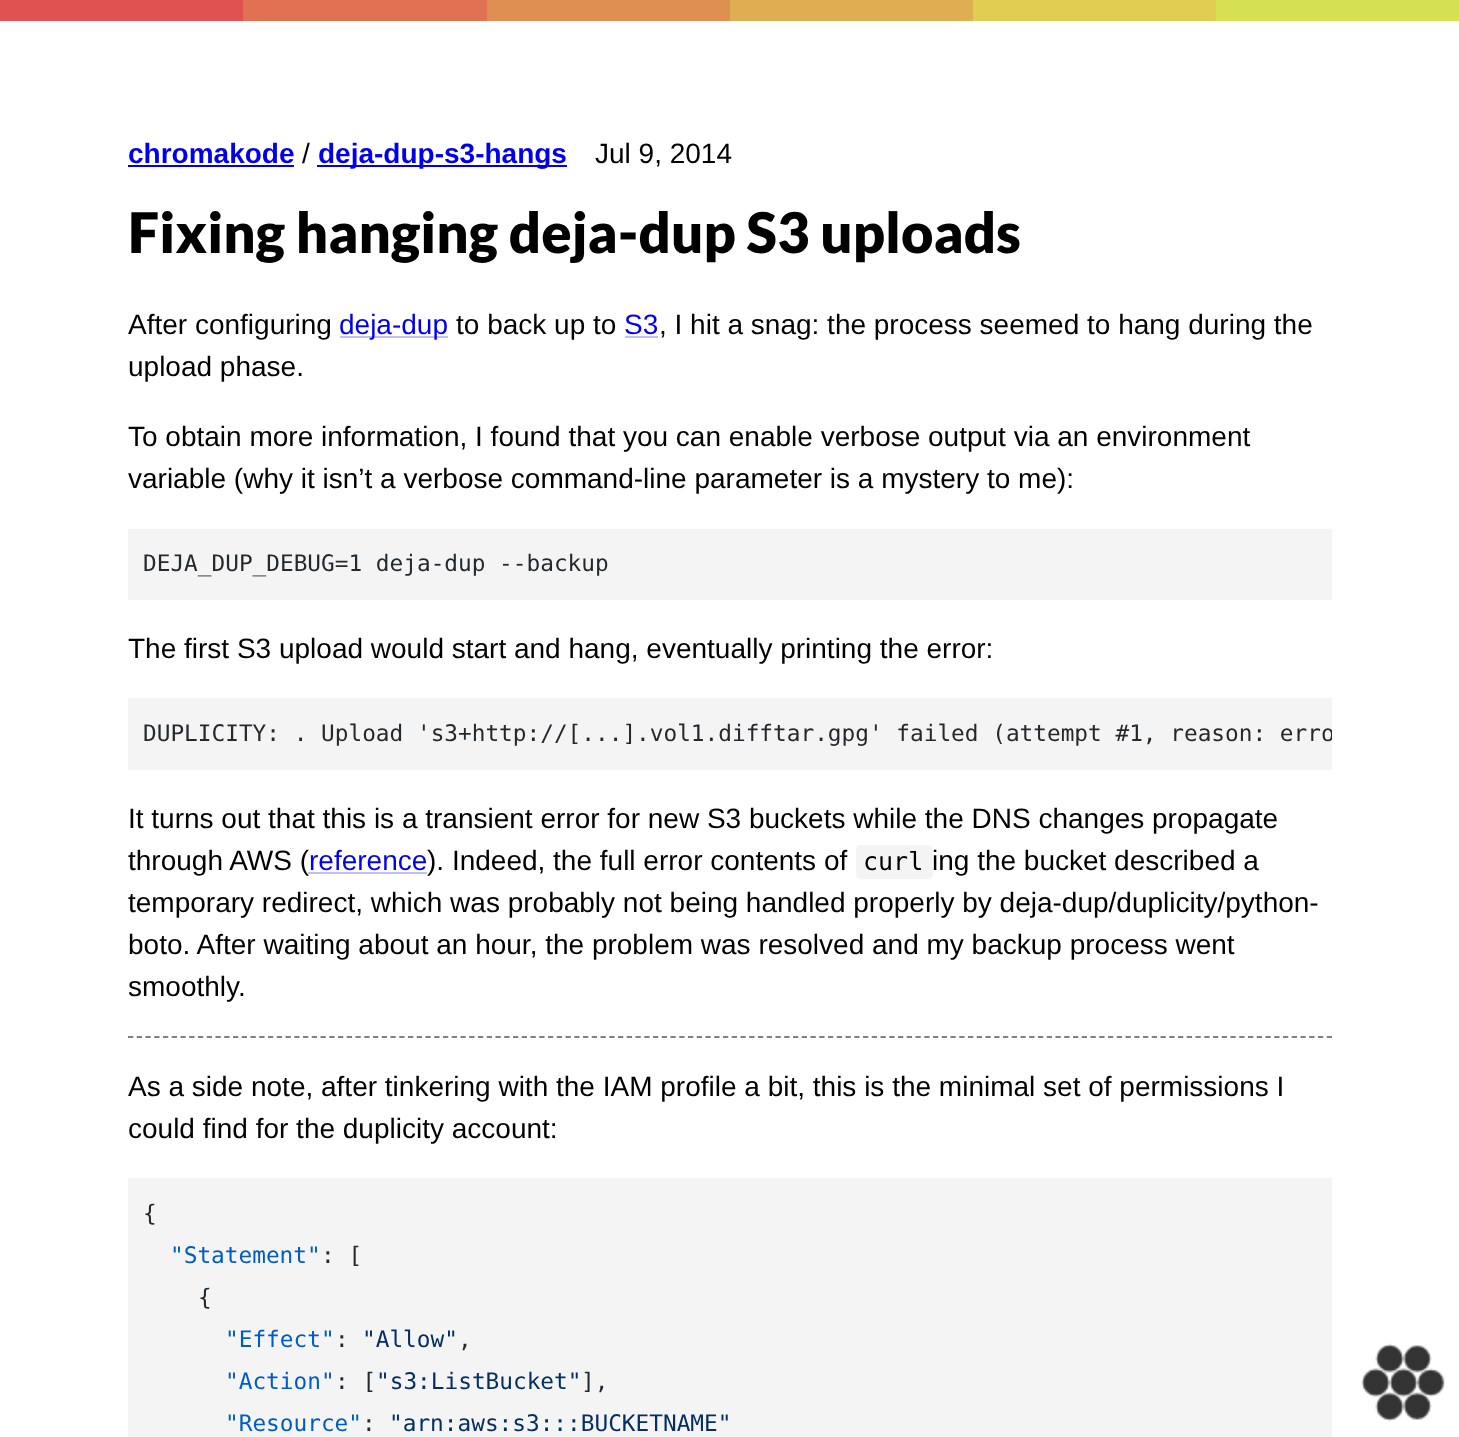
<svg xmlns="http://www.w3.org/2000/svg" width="1459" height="1437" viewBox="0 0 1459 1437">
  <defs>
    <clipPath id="clip1"><path d="M128 698h1204v72H128z"/></clipPath>
  </defs>
  <rect width="100%" height="100%" fill="#fff"/>
  <path d="M0 0h243v21H0z" fill="#e05252"/>
  <path d="M243 0h244v21H243z" fill="#e07152"/>
  <path d="M487 0h243v21H487z" fill="#e08f52"/>
  <path d="M730 0h243v21H730z" fill="#e0ae52"/>
  <path d="M973 0h243v21H973z" fill="#e0cd52"/>
  <path d="M1216 0h243v21H1216z" fill="#d5e052"/>
  <path d="M128 165h166v2H128z" fill="#00e"/>
  <path d="M317 165h250v2H317z" fill="#00e"/>
  <path d="M340 336h108v2H340z" fill="#bfbffb"/>
  <path d="M625 336h33v2H625z" fill="#bfbffb"/>
  <path d="M128 529h1204v71H128z" fill="#f4f4f4"/>
  <path d="M128 698h1204v72H128z" fill="#f4f4f4"/>
  <rect x="856" y="845" width="77" height="34" rx="5" fill="#f4f4f4"/>
  <path d="M128 1037H1332" fill="none" stroke="#808080" stroke-width="1.8" stroke-dasharray="5.25 3.5"/>
  <path d="M128 1178h1204v259H128z" fill="#f4f4f4"/>
  <image x="1361" y="1343" width="84" height="79" href="img/1.png"/>
  <text x="128" y="163" font-family="Liberation Sans" font-size="28" font-weight="bold" fill="#00e">chromakode</text>
  <text x="302" y="163" font-family="Liberation Sans" font-size="28" fill="#000">/</text>
  <text x="318" y="163" font-family="Liberation Sans" font-size="28" font-weight="bold" fill="#00e">deja-dup-s3-hangs</text>
  <text x="595" y="163" font-family="Liberation Sans" font-size="28" fill="#000">Jul 9, 2014</text>
  <text x="128" y="253" font-family="Lato" font-size="56" font-weight="900" fill="#000">Fixing hanging deja-dup S3 uploads</text>
  <text x="128" y="334" font-family="Liberation Sans" font-size="28" fill="#000">After configuring</text>
  <text x="339" y="334" font-family="Liberation Sans" font-size="28" fill="#00e">deja-dup</text>
  <text x="456" y="334" font-family="Liberation Sans" font-size="28" fill="#000">to back up to</text>
  <text x="624" y="334" font-family="Liberation Sans" font-size="28" fill="#00e">S3</text>
  <g font-family="Liberation Sans" font-size="28" fill="#000">
    <text x="659" y="334">, I hit a snag: the process seemed to hang during the</text>
    <text x="128" y="376">upload phase.</text>
    <text x="128" y="446">To obtain more information, I found that you can enable verbose output via an environment</text>
    <text x="128" y="488">variable (why it isn’t a verbose command-line parameter is a mystery to me):</text>
  </g>
  <text x="143" y="571" font-family="DejaVu Sans Mono" font-size="22.75" fill="#24292e">DEJA_DUP_DEBUG=1 deja-dup --backup</text>
  <text x="128" y="658" font-family="Liberation Sans" font-size="28" fill="#000">The first S3 upload would start and hang, eventually printing the error:</text>
  <g clip-path="url(#clip1)">
    <text x="143" y="741" font-family="DejaVu Sans Mono" font-size="22.75" fill="#24292e">DUPLICITY: . Upload 's3+http://[...].vol1.difftar.gpg' failed (attempt #1, reason: erro</text>
  </g>
  <g font-family="Liberation Sans" font-size="28" fill="#000">
    <text x="128" y="828">It turns out that this is a transient error for new S3 buckets while the DNS changes propagate</text>
    <text x="128" y="870">through AWS (</text>
  </g>
  <text x="309" y="870" font-family="Liberation Sans" font-size="28" fill="#00e">reference</text>
  <path d="M308 872h119v2H308z" fill="#bfbffb"/>
  <text x="427" y="870" font-family="Liberation Sans" font-size="28" fill="#000">). Indeed, the full error contents of</text>
  <text x="863" y="870" font-family="DejaVu Sans Mono" font-size="25" fill="#000">curl</text>
  <g font-family="Liberation Sans" font-size="28" fill="#000">
    <text x="932" y="870">ing the bucket described a</text>
    <text x="128" y="912">temporary redirect, which was probably not being handled properly by deja-dup/duplicity/python-</text>
    <text x="128" y="954">boto. After waiting about an hour, the problem was resolved and my backup process went</text>
    <text x="128" y="996">smoothly.</text>
    <text x="128" y="1096">As a side note, after tinkering with the IAM profile a bit, this is the minimal set of permissions I</text>
    <text x="128" y="1138">could find for the duplicity account:</text>
  </g>
  <text x="143" y="1221" font-family="DejaVu Sans Mono" font-size="22.75" fill="#24292e">{</text>
  <text x="170" y="1263" font-family="DejaVu Sans Mono" font-size="22.75" fill="#005cc5">"Statement"</text>
  <g font-family="DejaVu Sans Mono" font-size="22.75" fill="#24292e">
    <text x="321" y="1263">: [</text>
    <text x="198" y="1305">{</text>
  </g>
  <text x="225" y="1347" font-family="DejaVu Sans Mono" font-size="22.75" fill="#005cc5">"Effect"</text>
  <text x="335" y="1347" font-family="DejaVu Sans Mono" font-size="22.75" fill="#24292e">:</text>
  <text x="362" y="1347" font-family="DejaVu Sans Mono" font-size="22.75" fill="#032f62">"Allow"</text>
  <text x="458" y="1347" font-family="DejaVu Sans Mono" font-size="22.75" fill="#24292e">,</text>
  <text x="225" y="1389" font-family="DejaVu Sans Mono" font-size="22.75" fill="#005cc5">"Action"</text>
  <text x="335" y="1389" font-family="DejaVu Sans Mono" font-size="22.75" fill="#24292e">: [</text>
  <text x="376" y="1389" font-family="DejaVu Sans Mono" font-size="22.75" fill="#032f62">"s3:ListBucket"</text>
  <text x="581" y="1389" font-family="DejaVu Sans Mono" font-size="22.75" fill="#24292e">],</text>
  <text x="225" y="1431" font-family="DejaVu Sans Mono" font-size="22.75" fill="#005cc5">"Resource"</text>
  <text x="362" y="1431" font-family="DejaVu Sans Mono" font-size="22.75" fill="#24292e">:</text>
  <text x="389" y="1431" font-family="DejaVu Sans Mono" font-size="22.75" fill="#032f62">"arn:aws:s3:::BUCKETNAME"</text>
</svg>
